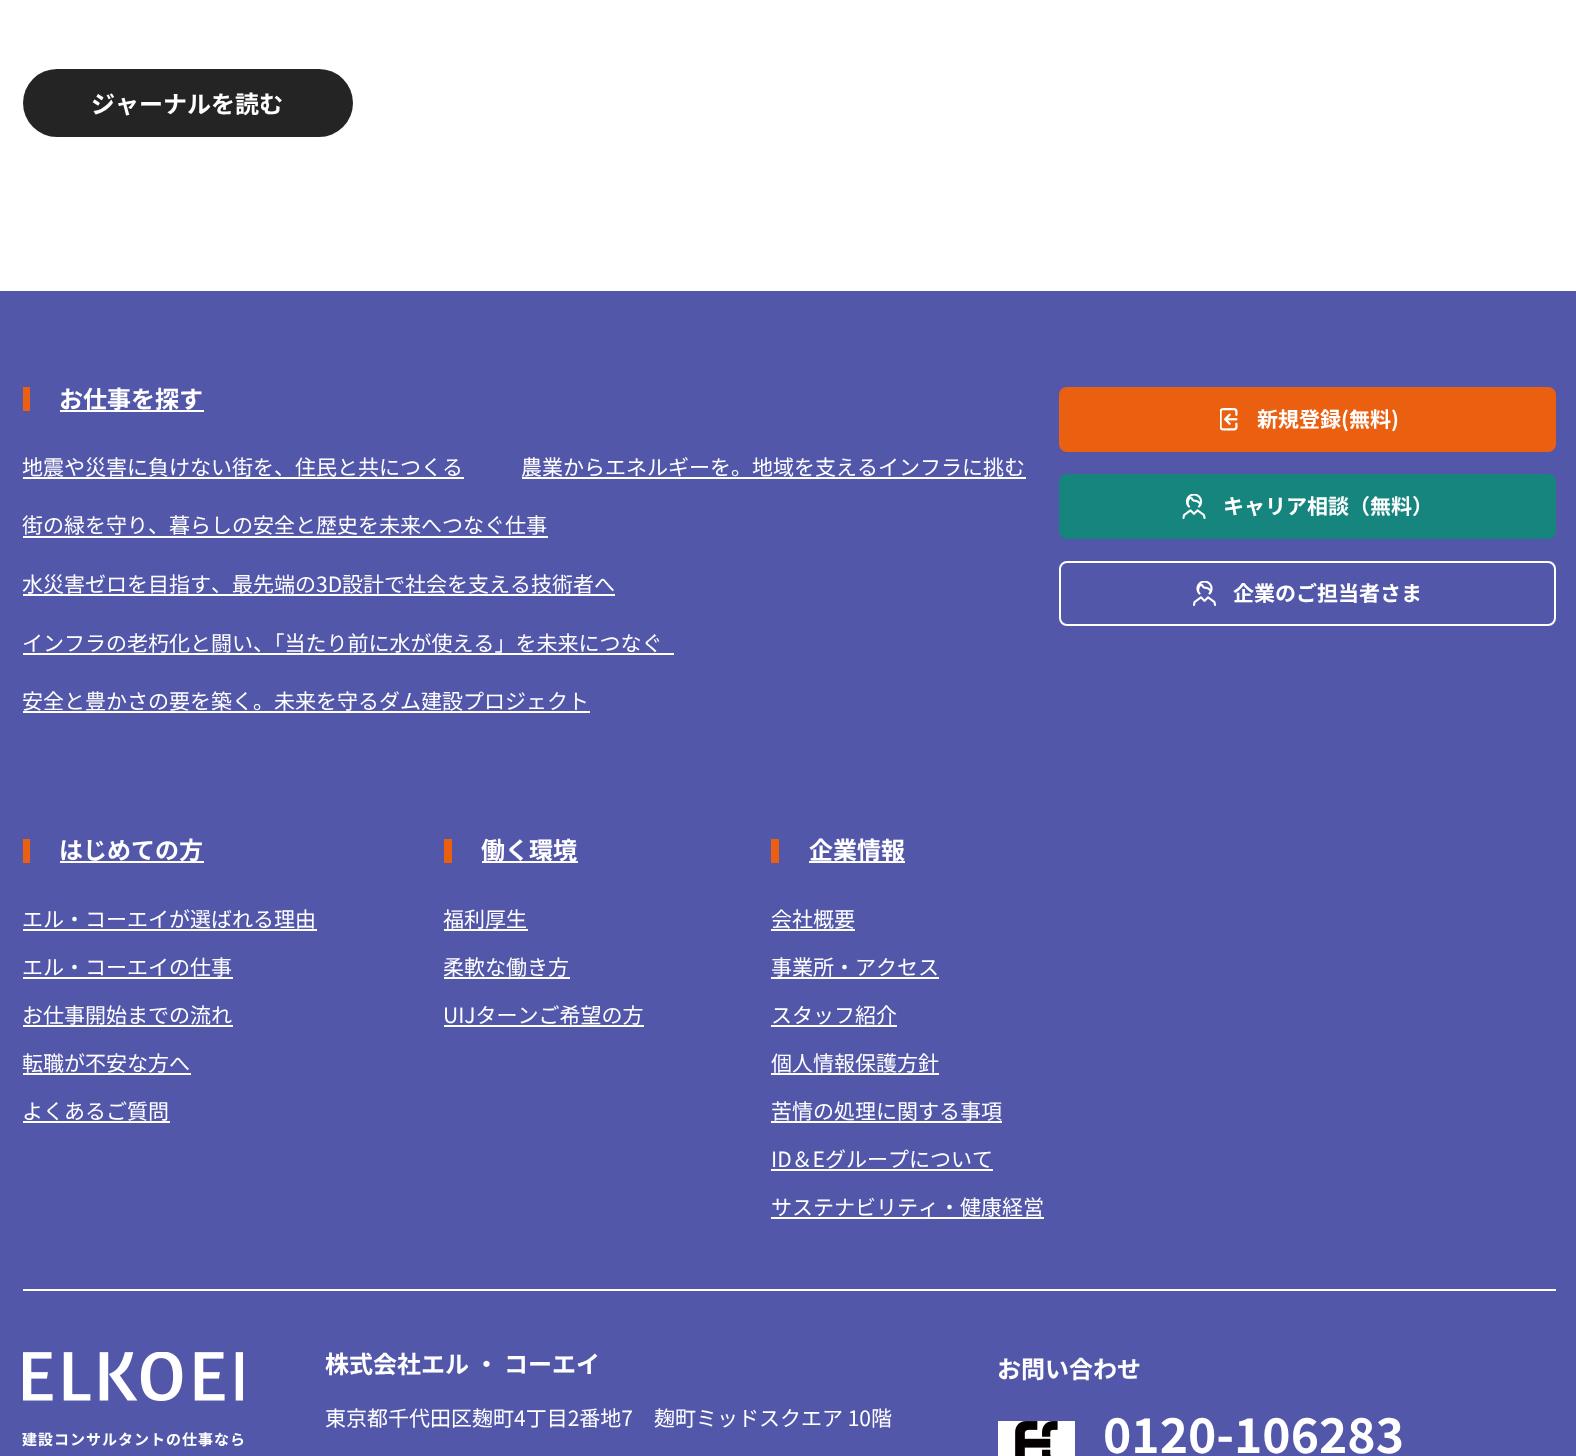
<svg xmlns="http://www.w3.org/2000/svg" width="1576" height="1456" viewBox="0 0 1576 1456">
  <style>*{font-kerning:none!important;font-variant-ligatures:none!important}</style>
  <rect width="100%" height="100%" fill="#fff"/>
  <rect x="23" y="69" width="330" height="68" rx="34" fill="#242424"/>
  <path d="M0 291h1576v1165H0z" fill="#5257aa"/>
  <path d="M23 387h7v24H23z" fill="#ea6010"/>
  <path d="M60 410h144v2H60z" fill="#fff"/>
  <path d="M23 477h441v2H23z" fill="#fff"/>
  <path d="M522 477h504v2H522z" fill="#fff"/>
  <path d="M23 536h525v2H23z" fill="#fff"/>
  <path d="M23 594h592v2H23z" fill="#fff"/>
  <path d="M23 653h651v2H23z" fill="#fff"/>
  <path d="M23 711h567v2H23z" fill="#fff"/>
  <path d="M23 839h7v24H23z" fill="#ea6010"/>
  <path d="M60 861h144v2H60z" fill="#fff"/>
  <path d="M23 929h294v2H23z" fill="#fff"/>
  <path d="M23 977h210v2H23z" fill="#fff"/>
  <path d="M23 1025h210v2H23z" fill="#fff"/>
  <path d="M23 1073h168v2H23z" fill="#fff"/>
  <path d="M23 1121h147v2H23z" fill="#fff"/>
  <path d="M444 839h8v24H444z" fill="#ea6010"/>
  <path d="M482 861h96v2H482z" fill="#fff"/>
  <path d="M444 929h84v2H444z" fill="#fff"/>
  <path d="M444 977h126v2H444z" fill="#fff"/>
  <path d="M444 1025h200v2H444z" fill="#fff"/>
  <path d="M771 839h8v24H771z" fill="#ea6010"/>
  <path d="M809 861h96v2H809z" fill="#fff"/>
  <path d="M771 929h84v2H771z" fill="#fff"/>
  <path d="M771 977h168v2H771z" fill="#fff"/>
  <path d="M771 1025h126v2H771z" fill="#fff"/>
  <path d="M771 1073h168v2H771z" fill="#fff"/>
  <path d="M771 1121h231v2H771z" fill="#fff"/>
  <path d="M771 1169h222v2H771z" fill="#fff"/>
  <path d="M771 1217h273v2H771z" fill="#fff"/>
  <rect x="1059" y="387" width="497" height="65" rx="8" fill="#ea6010"/>
  <image x="1220" y="408" width="18" height="23" href="img/1.png"/>
  <rect x="1059" y="474" width="497" height="65" rx="8" fill="#16857e"/>
  <image x="1182" y="494" width="24" height="25" href="img/2.png"/>
  <rect x="1060" y="562" width="495" height="63" rx="7" fill="none" stroke="#fff" stroke-width="2"/>
  <image x="1193" y="581" width="24" height="25" href="img/3.png"/>
  <path d="M23 1289h1533v2H23z" fill="#fff"/>
  <image x="23" y="1352" width="220" height="49" href="img/4.png"/>
  <image x="998" y="1421" width="77" height="35" href="img/5.png"/>
  <g font-family="Noto Sans JP" font-size="24" font-weight="bold" fill="#fff">
    <text x="91" y="113">ジャーナルを読む</text>
    <text x="59" y="408">お仕事を探す</text>
  </g>
  <g font-family="Noto Sans JP" font-size="21" fill="#fff">
    <text x="22" y="475">地震や災害に負けない街を、住民と共につくる</text>
    <text x="521" y="475">農業からエネルギーを。地域を支えるインフラに挑む</text>
    <text x="22" y="533">街の緑を守り、暮らしの安全と歴史を未来へつなぐ仕事</text>
    <text x="22" y="592">水災害ゼロを目指す、最先端の3D設計で社会を支える技術者へ</text>
    <text x="22" y="651">インフラの老朽化と闘い、「当たり前に水が使える」を未来につなぐ</text>
    <text x="22" y="709">安全と豊かさの要を築く。未来を守るダム建設プロジェクト</text>
  </g>
  <text x="59" y="859" font-family="Noto Sans JP" font-size="24" font-weight="bold" fill="#fff">はじめての方</text>
  <g font-family="Noto Sans JP" font-size="21" fill="#fff">
    <text x="22" y="927">エル・コーエイが選ばれる理由</text>
    <text x="22" y="975">エル・コーエイの仕事</text>
    <text x="22" y="1023">お仕事開始までの流れ</text>
    <text x="22" y="1071">転職が不安な方へ</text>
    <text x="22" y="1119">よくあるご質問</text>
  </g>
  <text x="481" y="859" font-family="Noto Sans JP" font-size="24" font-weight="bold" fill="#fff">働く環境</text>
  <g font-family="Noto Sans JP" font-size="21" fill="#fff">
    <text x="443" y="927">福利厚生</text>
    <text x="443" y="975">柔軟な働き方</text>
    <text x="443" y="1023">UIJターンご希望の方</text>
  </g>
  <text x="809" y="859" font-family="Noto Sans JP" font-size="24" font-weight="bold" fill="#fff">企業情報</text>
  <g font-family="Noto Sans JP" font-size="21" fill="#fff">
    <text x="771" y="927">会社概要</text>
    <text x="771" y="975">事業所・アクセス</text>
    <text x="771" y="1023">スタッフ紹介</text>
    <text x="771" y="1071">個人情報保護方針</text>
    <text x="771" y="1119">苦情の処理に関する事項</text>
    <text x="771" y="1167">ID＆Eグループについて</text>
    <text x="771" y="1215">サステナビリティ・健康経営</text>
  </g>
  <g font-family="Noto Sans JP" font-size="21" font-weight="bold" fill="#fff">
    <text x="1257" y="427">新規登録(無料)</text>
    <text x="1223" y="514">キャリア相談（無料）</text>
    <text x="1233" y="601">企業のご担当者さま</text>
  </g>
  <text x="325" y="1373" font-family="Noto Sans JP" font-size="24" font-weight="bold" fill="#fff">株式会社エル ・ コーエイ</text>
  <text x="325" y="1426" font-family="Noto Sans JP" font-size="21" fill="#fff">東京都千代田区麹町4丁目2番地7　麹町ミッドスクエア 10階</text>
  <text x="22" y="1445" font-family="Noto Sans JP" font-size="15" font-weight="bold" letter-spacing="1" fill="#fff">建設コンサルタントの仕事なら</text>
  <text x="997" y="1378" font-family="Noto Sans JP" font-size="24" font-weight="bold" fill="#fff">お問い合わせ</text>
  <text x="1103" y="1453" font-family="Noto Sans JP" font-size="48" font-weight="bold" fill="#fff">0120-106283</text>
</svg>
